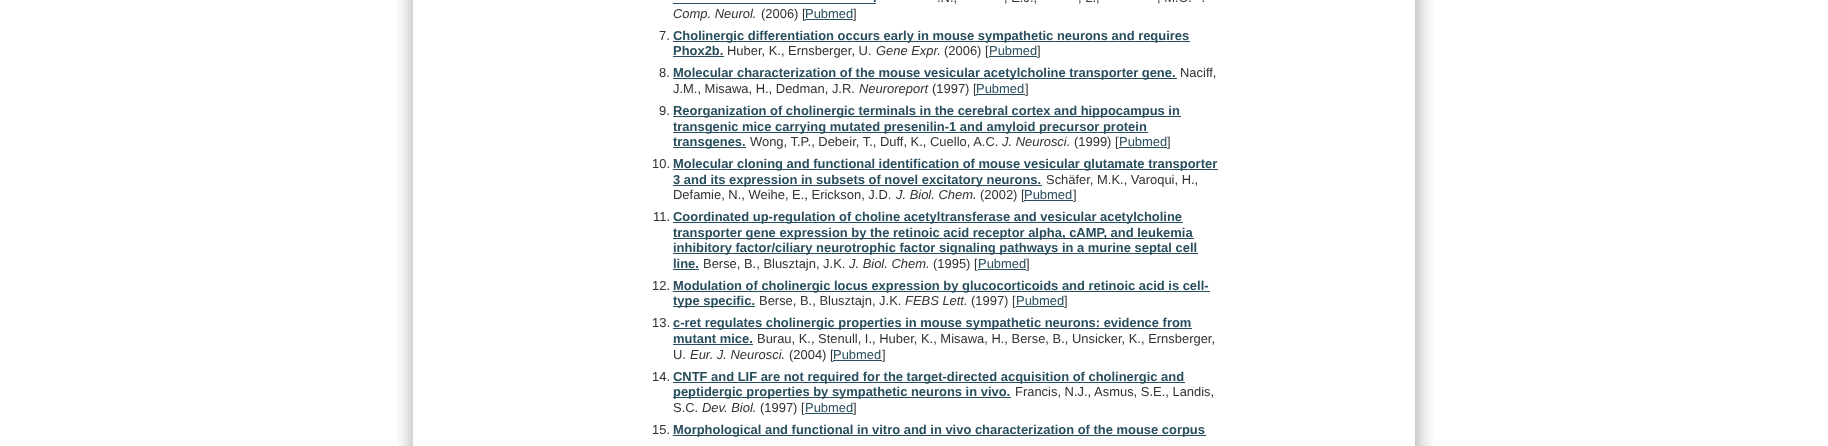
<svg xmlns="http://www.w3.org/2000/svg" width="1828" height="446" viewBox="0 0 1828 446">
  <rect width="100%" height="100%" fill="#fff"/>
  <image x="397" y="0" width="1036" height="446" href="img/1.png"/>
  <path d="M673 3h203v1H673z" fill="#284d5d"/>
  <path d="M673 41h517v1H673z" fill="#284d5d"/>
  <path d="M673 56h51v1H673z" fill="#284d5d"/>
  <path d="M989 56h48v1H989z" fill="#284d5d"/>
  <path d="M673 78h504v1H673z" fill="#284d5d"/>
  <path d="M673 116h508v1H673z" fill="#284d5d"/>
  <path d="M673 132h475v1H673z" fill="#284d5d"/>
  <path d="M673 147h73v1H673z" fill="#284d5d"/>
  <path d="M1119 147h48v1H1119z" fill="#284d5d"/>
  <path d="M673 169h545v1H673z" fill="#284d5d"/>
  <path d="M673 185h369v1H673z" fill="#284d5d"/>
  <path d="M673 222h510v1H673z" fill="#284d5d"/>
  <path d="M673 238h521v1H673z" fill="#284d5d"/>
  <path d="M673 253h525v1H673z" fill="#284d5d"/>
  <path d="M673 269h26v1H673z" fill="#284d5d"/>
  <path d="M978 269h48v1H978z" fill="#284d5d"/>
  <path d="M673 291h537v1H673z" fill="#284d5d"/>
  <path d="M673 306h82v1H673z" fill="#284d5d"/>
  <path d="M673 328h519v1H673z" fill="#284d5d"/>
  <path d="M673 344h80v1H673z" fill="#284d5d"/>
  <path d="M673 382h512v1H673z" fill="#284d5d"/>
  <path d="M673 397h338v1H673z" fill="#284d5d"/>
  <path d="M805 413h48v1H805z" fill="#284d5d"/>
  <path d="M673 435h533v1H673z" fill="#284d5d"/>
  <text x="873" y="2" font-family="Liberation Sans" font-size="12.95" font-weight="bold" fill="#284d5d">.</text>
  <g font-family="Liberation Sans" font-size="12.95" fill="#333">
    <text x="937" y="2">.N.,</text>
    <text x="1004" y="2">, E.J.,</text>
    <text x="1078" y="2">, L.,</text>
    <text x="1157" y="2">, M.C.</text>
  </g>
  <g font-family="Liberation Sans" font-size="12.95" font-style="italic" fill="#333">
    <text x="1202" y="2">.</text>
    <text x="673" y="18">Comp. Neurol.</text>
  </g>
  <text x="761" y="18" font-family="Liberation Sans" font-size="12.95" fill="#333">(2006) [</text>
  <text x="805" y="18" font-family="Liberation Sans" font-size="12.95" fill="#284d5d">Pubmed</text>
  <text x="853" y="18" font-family="Liberation Sans" font-size="12.95" fill="#333">]</text>
  <path d="M805 19h48v1H805z" fill="#284d5d"/>
  <text x="659" y="40" font-family="Liberation Sans" font-size="12.95" fill="#333">7.</text>
  <g font-family="Liberation Sans" font-size="12.95" font-weight="bold" fill="#284d5d">
    <text x="673" y="40">Cholinergic differentiation occurs early in mouse sympathetic neurons and requires</text>
    <text x="673" y="55">Phox2b.</text>
  </g>
  <text x="727" y="55" font-family="Liberation Sans" font-size="12.95" fill="#333">Huber, K., Ernsberger, U.</text>
  <text x="876" y="55" font-family="Liberation Sans" font-size="12.95" font-style="italic" fill="#333">Gene Expr.</text>
  <text x="944" y="55" font-family="Liberation Sans" font-size="12.95" fill="#333">(2006) [</text>
  <text x="989" y="55" font-family="Liberation Sans" font-size="12.95" fill="#284d5d">Pubmed</text>
  <g font-family="Liberation Sans" font-size="12.95" fill="#333">
    <text x="1037" y="55">]</text>
    <text x="659" y="77">8.</text>
  </g>
  <text x="673" y="77" font-family="Liberation Sans" font-size="12.95" font-weight="bold" fill="#284d5d">Molecular characterization of the mouse vesicular acetylcholine transporter gene.</text>
  <g font-family="Liberation Sans" font-size="12.95" fill="#333">
    <text x="1180" y="77">Naciff,</text>
    <text x="673" y="93">J.M., Misawa, H., Dedman, J.R.</text>
  </g>
  <text x="859" y="93" font-family="Liberation Sans" font-size="12.95" font-style="italic" fill="#333">Neuroreport</text>
  <text x="932" y="93" font-family="Liberation Sans" font-size="12.95" fill="#333">(1997) [</text>
  <text x="976" y="93" font-family="Liberation Sans" font-size="12.95" fill="#284d5d">Pubmed</text>
  <path d="M976 94h49v1H976z" fill="#284d5d"/>
  <g font-family="Liberation Sans" font-size="12.95" fill="#333">
    <text x="1025" y="93">]</text>
    <text x="659" y="115">9.</text>
  </g>
  <g font-family="Liberation Sans" font-size="12.95" font-weight="bold" fill="#284d5d">
    <text x="673" y="115">Reorganization of cholinergic terminals in the cerebral cortex and hippocampus in</text>
    <text x="673" y="131">transgenic mice carrying mutated presenilin-1 and amyloid precursor protein</text>
    <text x="673" y="146">transgenes.</text>
  </g>
  <text x="750" y="146" font-family="Liberation Sans" font-size="12.95" fill="#333">Wong, T.P., Debeir, T., Duff, K., Cuello, A.C.</text>
  <text x="1002" y="146" font-family="Liberation Sans" font-size="12.95" font-style="italic" fill="#333">J. Neurosci.</text>
  <text x="1074" y="146" font-family="Liberation Sans" font-size="12.95" fill="#333">(1999) [</text>
  <text x="1119" y="146" font-family="Liberation Sans" font-size="12.95" fill="#284d5d">Pubmed</text>
  <g font-family="Liberation Sans" font-size="12.95" fill="#333">
    <text x="1167" y="146">]</text>
    <text x="652" y="168">10.</text>
  </g>
  <g font-family="Liberation Sans" font-size="12.95" font-weight="bold" fill="#284d5d">
    <text x="673" y="168">Molecular cloning and functional identification of mouse vesicular glutamate transporter</text>
    <text x="673" y="184">3 and its expression in subsets of novel excitatory neurons.</text>
  </g>
  <g font-family="Liberation Sans" font-size="12.95" fill="#333">
    <text x="1046" y="184">Schäfer, M.K., Varoqui, H.,</text>
    <text x="673" y="199">Defamie, N., Weihe, E., Erickson, J.D.</text>
  </g>
  <text x="896" y="199" font-family="Liberation Sans" font-size="12.95" font-style="italic" fill="#333">J. Biol. Chem.</text>
  <text x="980" y="199" font-family="Liberation Sans" font-size="12.95" fill="#333">(2002) [</text>
  <text x="1024" y="199" font-family="Liberation Sans" font-size="12.95" fill="#284d5d">Pubmed</text>
  <path d="M1024 200h49v1H1024z" fill="#284d5d"/>
  <g font-family="Liberation Sans" font-size="12.95" fill="#333">
    <text x="1073" y="199">]</text>
    <text x="653" y="221">11.</text>
  </g>
  <g font-family="Liberation Sans" font-size="12.95" font-weight="bold" fill="#284d5d">
    <text x="673" y="221">Coordinated up-regulation of choline acetyltransferase and vesicular acetylcholine</text>
    <text x="673" y="237">transporter gene expression by the retinoic acid receptor alpha, cAMP, and leukemia</text>
    <text x="673" y="252">inhibitory factor/ciliary neurotrophic factor signaling pathways in a murine septal cell</text>
    <text x="673" y="268">line.</text>
  </g>
  <text x="703" y="268" font-family="Liberation Sans" font-size="12.95" fill="#333">Berse, B., Blusztajn, J.K.</text>
  <text x="849" y="268" font-family="Liberation Sans" font-size="12.95" font-style="italic" fill="#333">J. Biol. Chem.</text>
  <text x="933" y="268" font-family="Liberation Sans" font-size="12.95" fill="#333">(1995) [</text>
  <text x="978" y="268" font-family="Liberation Sans" font-size="12.95" fill="#284d5d">Pubmed</text>
  <g font-family="Liberation Sans" font-size="12.95" fill="#333">
    <text x="1026" y="268">]</text>
    <text x="652" y="290">12.</text>
  </g>
  <g font-family="Liberation Sans" font-size="12.95" font-weight="bold" fill="#284d5d">
    <text x="673" y="290">Modulation of cholinergic locus expression by glucocorticoids and retinoic acid is cell-</text>
    <text x="673" y="305">type specific.</text>
  </g>
  <text x="759" y="305" font-family="Liberation Sans" font-size="12.95" fill="#333">Berse, B., Blusztajn, J.K.</text>
  <text x="905" y="305" font-family="Liberation Sans" font-size="12.95" font-style="italic" fill="#333">FEBS Lett.</text>
  <text x="971" y="305" font-family="Liberation Sans" font-size="12.95" fill="#333">(1997) [</text>
  <text x="1016" y="305" font-family="Liberation Sans" font-size="12.95" fill="#284d5d">Pubmed</text>
  <text x="1064" y="305" font-family="Liberation Sans" font-size="12.95" fill="#333">]</text>
  <path d="M1016 306h48v1H1016z" fill="#284d5d"/>
  <text x="652" y="327" font-family="Liberation Sans" font-size="12.95" fill="#333">13.</text>
  <g font-family="Liberation Sans" font-size="12.95" font-weight="bold" fill="#284d5d">
    <text x="673" y="327">c-ret regulates cholinergic properties in mouse sympathetic neurons: evidence from</text>
    <text x="673" y="343">mutant mice.</text>
  </g>
  <g font-family="Liberation Sans" font-size="12.95" fill="#333">
    <text x="757" y="343">Burau, K., Stenull, I., Huber, K., Misawa, H., Berse, B., Unsicker, K., Ernsberger,</text>
    <text x="673" y="359">U.</text>
  </g>
  <text x="690" y="359" font-family="Liberation Sans" font-size="12.95" font-style="italic" fill="#333">Eur. J. Neurosci.</text>
  <text x="789" y="359" font-family="Liberation Sans" font-size="12.95" fill="#333">(2004) [</text>
  <text x="833" y="359" font-family="Liberation Sans" font-size="12.95" fill="#284d5d">Pubmed</text>
  <path d="M833 360h49v1H833z" fill="#284d5d"/>
  <g font-family="Liberation Sans" font-size="12.95" fill="#333">
    <text x="882" y="359">]</text>
    <text x="652" y="381">14.</text>
  </g>
  <g font-family="Liberation Sans" font-size="12.95" font-weight="bold" fill="#284d5d">
    <text x="673" y="381">CNTF and LIF are not required for the target-directed acquisition of cholinergic and</text>
    <text x="673" y="396">peptidergic properties by sympathetic neurons in vivo.</text>
  </g>
  <g font-family="Liberation Sans" font-size="12.95" fill="#333">
    <text x="1015" y="396">Francis, N.J., Asmus, S.E., Landis,</text>
    <text x="673" y="412">S.C.</text>
  </g>
  <text x="702" y="412" font-family="Liberation Sans" font-size="12.95" font-style="italic" fill="#333">Dev. Biol.</text>
  <text x="760" y="412" font-family="Liberation Sans" font-size="12.95" fill="#333">(1997) [</text>
  <text x="805" y="412" font-family="Liberation Sans" font-size="12.95" fill="#284d5d">Pubmed</text>
  <g font-family="Liberation Sans" font-size="12.95" fill="#333">
    <text x="853" y="412">]</text>
    <text x="652" y="434">15.</text>
  </g>
  <text x="673" y="434" font-family="Liberation Sans" font-size="12.95" font-weight="bold" fill="#284d5d">Morphological and functional in vitro and in vivo characterization of the mouse corpus</text>
</svg>
